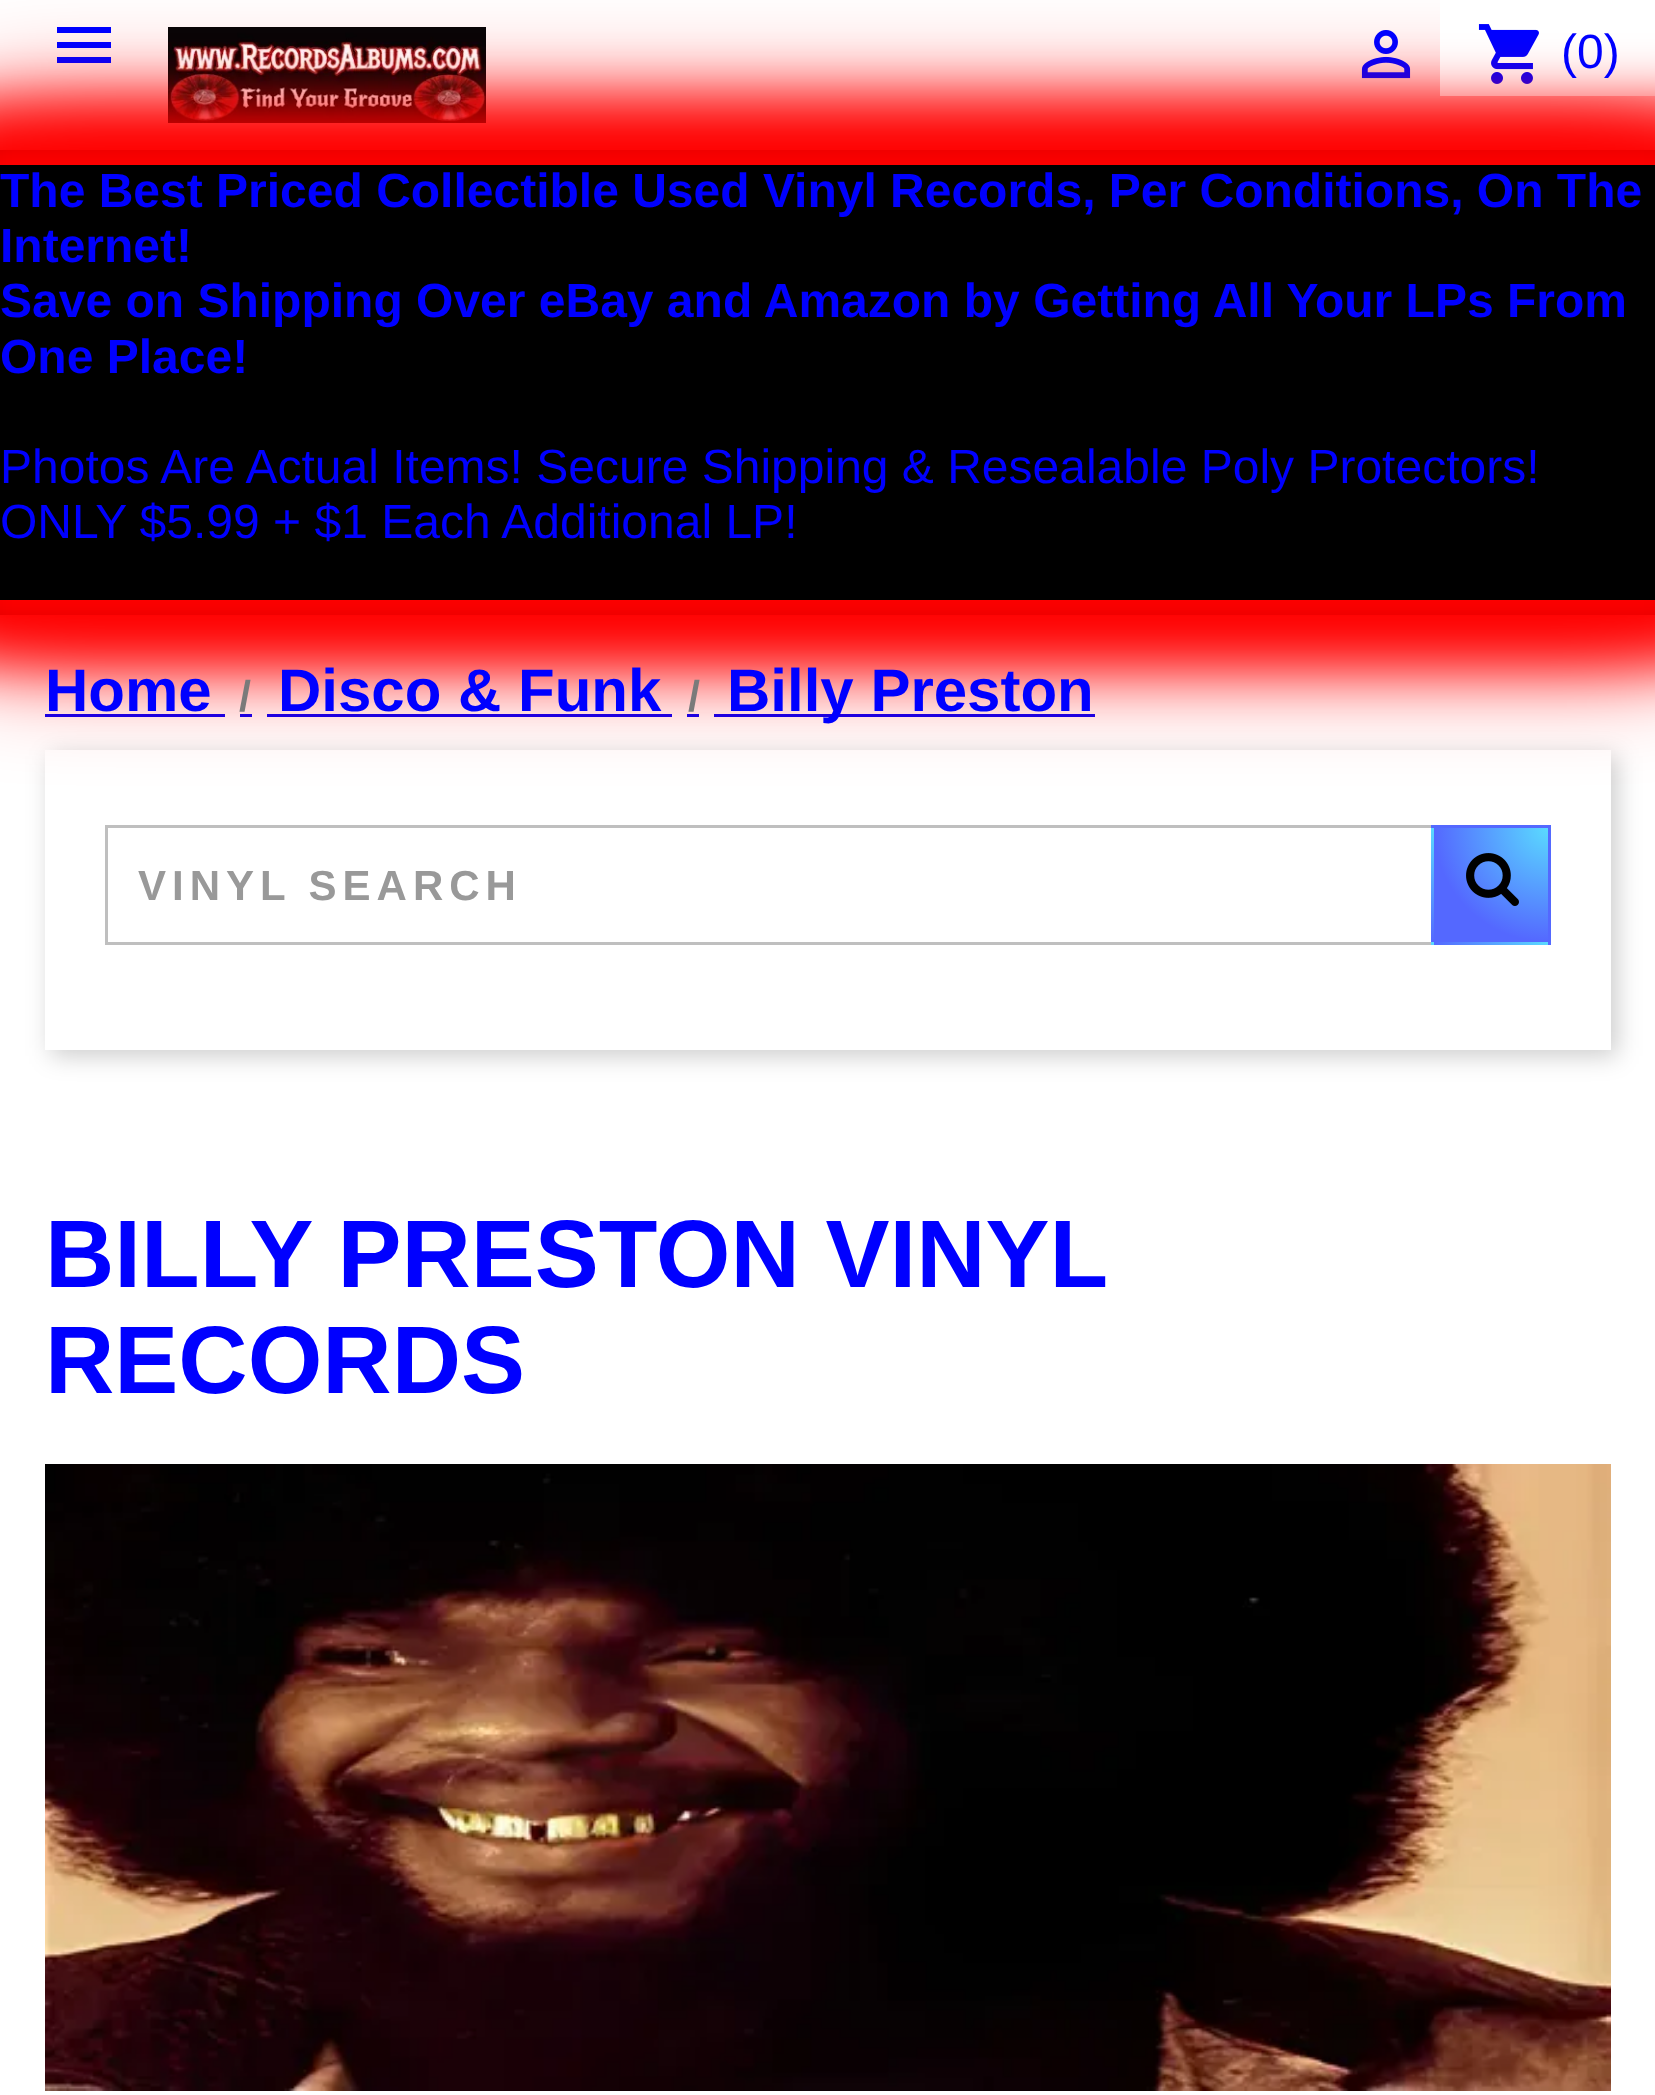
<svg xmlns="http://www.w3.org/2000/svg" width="1655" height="2095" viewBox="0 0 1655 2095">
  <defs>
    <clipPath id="clip1"><path d="M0 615h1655v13H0z"/></clipPath>
    <clipPath id="clip2"><path d="M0 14H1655V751H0ZM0 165H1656V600H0Z" clip-rule="evenodd"/></clipPath>
    <clipPath id="clip3"><path d="M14 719H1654V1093H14ZM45 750H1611V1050H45Z" clip-rule="evenodd"/></clipPath>
    <radialGradient id="g1" gradientUnits="userSpaceOnUse" cx="1434" cy="714" r="114"><stop offset="0" stop-color="#5adaff"/><stop offset="1" stop-color="#5468ff"/></radialGradient>
    <radialGradient id="g2" gradientUnits="userSpaceOnUse" cx="1548" cy="714" r="114"><stop offset="0" stop-color="#5adaff"/><stop offset="1" stop-color="#5468ff"/></radialGradient>
    <radialGradient id="g3" gradientUnits="userSpaceOnUse" cx="1662" cy="714" r="114"><stop offset="0" stop-color="#5adaff"/><stop offset="1" stop-color="#5468ff"/></radialGradient>
    <radialGradient id="g4" gradientUnits="userSpaceOnUse" cx="1434" cy="828" r="114"><stop offset="0" stop-color="#5adaff"/><stop offset="1" stop-color="#5468ff"/></radialGradient>
    <radialGradient id="g5" gradientUnits="userSpaceOnUse" cx="1548" cy="828" r="114"><stop offset="0" stop-color="#5adaff"/><stop offset="1" stop-color="#5468ff"/></radialGradient>
    <radialGradient id="g6" gradientUnits="userSpaceOnUse" cx="1662" cy="828" r="114"><stop offset="0" stop-color="#5adaff"/><stop offset="1" stop-color="#5468ff"/></radialGradient>
    <radialGradient id="g7" gradientUnits="userSpaceOnUse" cx="1434" cy="942" r="114"><stop offset="0" stop-color="#5adaff"/><stop offset="1" stop-color="#5468ff"/></radialGradient>
    <radialGradient id="g8" gradientUnits="userSpaceOnUse" cx="1548" cy="942" r="114"><stop offset="0" stop-color="#5adaff"/><stop offset="1" stop-color="#5468ff"/></radialGradient>
    <radialGradient id="g9" gradientUnits="userSpaceOnUse" cx="1662" cy="942" r="114"><stop offset="0" stop-color="#5adaff"/><stop offset="1" stop-color="#5468ff"/></radialGradient>
  </defs>
  <rect width="100%" height="100%" fill="#fff"/>
  <g clip-path="url(#clip1)">
    <path d="M0 6h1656v615H0z" fill="#0000001c" filter="blur(7.5px)"/>
  </g>
  <path d="M45 714h180v3H45z" fill="#00f"/>
  <path d="M240 714h12v3H240z" fill="#00f"/>
  <path d="M687 714h12v3H687z" fill="#00f"/>
  <path d="M267 714h405v3H267z" fill="#00f"/>
  <path d="M714 714h381v3H714z" fill="#00f"/>
  <path d="M-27 123h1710v519H-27z" fill="#f00" filter="blur(60px)"/>
  <path d="M57 27H111V33H57ZM57 48V42H111V48ZM57 63V57H111V63Z" fill="#00f"/>
  <image x="168" y="27" width="318" height="96" href="img/1.png"/>
  <image x="1361" y="30" width="50" height="49" href="img/2.png"/>
  <path d="M1440 0h215v96H1440z" fill="#fff"/>
  <image x="1478" y="24" width="61" height="60" href="img/3.png"/>
  <path d="M0 150h1655v465H0z" fill="#000"/>
  <g clip-path="url(#clip2)">
    <path d="M-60 105h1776v555H-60z" fill="#f00" filter="blur(30px)"/>
  </g>
  <g clip-path="url(#clip3)">
    <path d="M51 756h1566v300H51z" fill="#00000033" filter="blur(12px)"/>
  </g>
  <path d="M106.5 826.5h1443v117H106.5z" fill="none" stroke="#bfbfbf" stroke-width="3"/>
  <path d="M1431 825h3v3H1431z" fill="url(#g1)"/>
  <path d="M1434 825h114v3H1434z" fill="url(#g2)"/>
  <path d="M1548 825h3v3H1548z" fill="url(#g3)"/>
  <path d="M1431 828h3v114H1431z" fill="url(#g4)"/>
  <path d="M1434 828h114v114H1434z" fill="url(#g5)"/>
  <path d="M1548 828h3v114H1548z" fill="url(#g6)"/>
  <path d="M1431 942h3v3H1431z" fill="url(#g7)"/>
  <path d="M1434 942h114v3H1434z" fill="url(#g8)"/>
  <path d="M1548 942h3v3H1548z" fill="url(#g9)"/>
  <image x="1466" y="853" width="53" height="53" href="img/4.png"/>
  <image x="45" y="1464" width="1566" height="627" href="img/5.png"/>
  <text x="1561" y="68" font-family="Liberation Sans" font-size="48" fill="#00f">(0)</text>
  <g font-family="Liberation Sans" font-size="48" font-weight="bold" fill="#00f">
    <text x="0" y="207">The Best Priced Collectible Used Vinyl Records, Per Conditions, On The</text>
    <text x="0" y="262">Internet!</text>
    <text x="0" y="317">Save on Shipping Over eBay and Amazon by Getting All Your LPs From</text>
    <text x="0" y="373">One Place!</text>
  </g>
  <g font-family="Liberation Sans" font-size="48" fill="#00f">
    <text x="0" y="483">Photos Are Actual Items! Secure Shipping &amp; Resealable Poly Protectors!</text>
    <text x="0" y="538">ONLY $5.99 + $1 Each Additional LP!</text>
  </g>
  <text x="45" y="711" font-family="Liberation Sans" font-size="60" font-weight="bold" fill="#00f">Home</text>
  <text x="239" y="711" font-family="Liberation Sans" font-size="43" font-weight="bold" fill="#7a7a7a">/</text>
  <text x="278" y="711" font-family="Liberation Sans" font-size="60" font-weight="bold" fill="#00f">Disco &amp; Funk</text>
  <text x="688" y="711" font-family="Liberation Sans" font-size="43" font-weight="bold" fill="#7a7a7a">/</text>
  <text x="727" y="711" font-family="Liberation Sans" font-size="60" font-weight="bold" fill="#00f">Billy Preston</text>
  <text x="138" y="900" font-family="Liberation Sans" font-size="42" font-weight="bold" letter-spacing="6" fill="#999">VINYL SEARCH</text>
  <g font-family="Liberation Sans" font-size="96" font-weight="bold" fill="#00f">
    <text x="45" y="1287" word-spacing="-1">BILLY PRESTON VINYL</text>
    <text x="45" y="1393">RECORDS</text>
  </g>
</svg>
